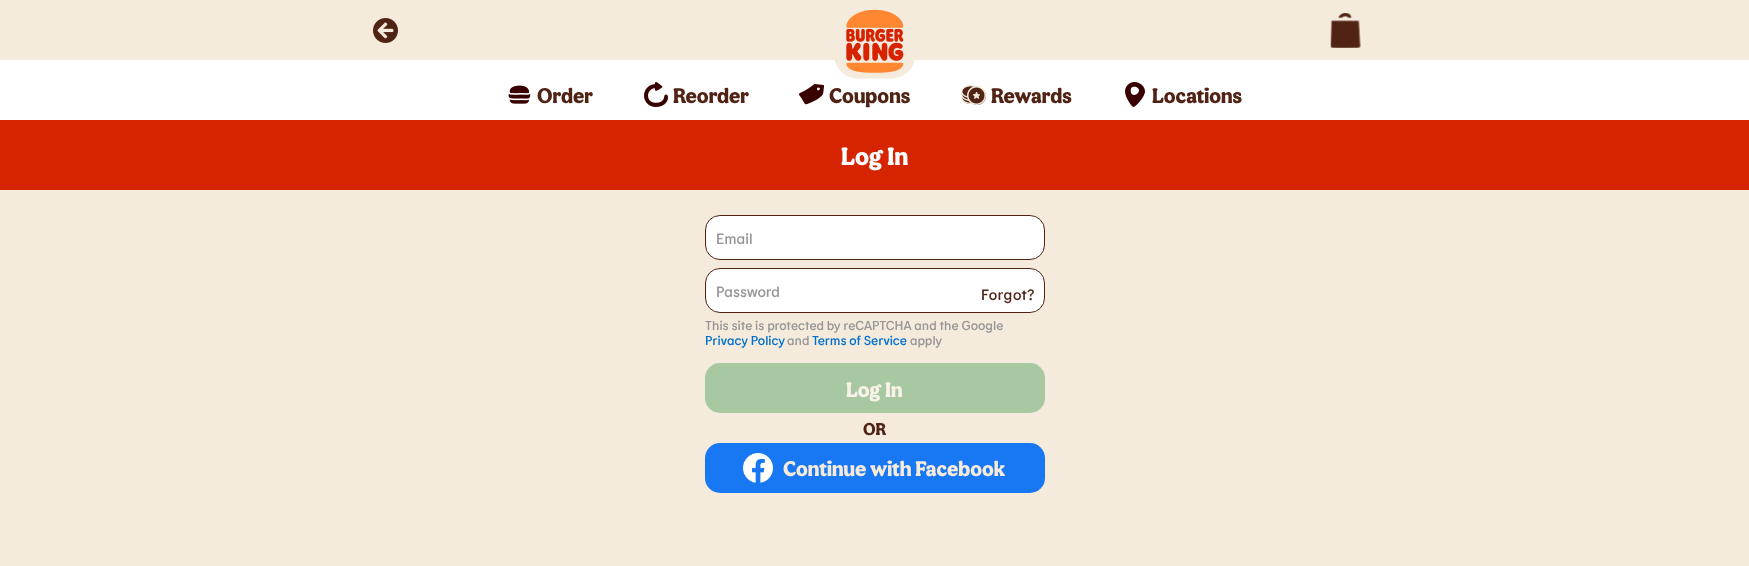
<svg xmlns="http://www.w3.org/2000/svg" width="1749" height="566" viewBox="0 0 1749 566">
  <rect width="100%" height="100%" fill="#f5ebdc"/>
  <image x="373" y="18" width="25" height="25" href="img/1.png"/>
  <path d="M0 60h1749v60H0z" fill="#fff"/>
  <image x="834" y="9" width="81" height="70" href="img/2.png"/>
  <image x="1330" y="13" width="31" height="35" href="img/3.png"/>
  <image x="508" y="85" width="23" height="19" href="img/4.png"/>
  <image x="644" y="82" width="24" height="25" href="img/5.png"/>
  <image x="799" y="84" width="25" height="21" href="img/6.png"/>
  <image x="961" y="85" width="25" height="20" href="img/7.png"/>
  <image x="1125" y="82" width="20" height="25" href="img/8.png"/>
  <path d="M0 120h1749v70H0z" fill="#d62300"/>
  <rect x="705.5" y="215.5" width="339" height="44" rx="14.5" fill="#fff" stroke="#502314"/>
  <rect x="705.5" y="268.5" width="339" height="44" rx="14.5" fill="#fff" stroke="#502314"/>
  <rect x="705" y="363" width="340" height="50" rx="15" fill="#a8c8a2"/>
  <rect x="705" y="443" width="340" height="50" rx="15" fill="#1877f2"/>
  <image x="743" y="453" width="30" height="30" href="img/9.png"/>
  <g font-family="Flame" font-size="21" fill="#502314">
    <text x="537" y="103">Order</text>
    <text x="673" y="103">Reorder</text>
    <text x="829" y="103">Coupons</text>
    <text x="991" y="103">Rewards</text>
    <text x="1152" y="103">Locations</text>
  </g>
  <text x="841" y="165" font-family="Flame" font-size="25" fill="#fff">Log In</text>
  <g font-family="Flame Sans" font-size="15" fill="#979797">
    <text x="716" y="244">Email</text>
    <text x="716" y="297">Password</text>
  </g>
  <text x="981" y="300" font-family="Flame Sans" font-size="15" letter-spacing="0.5" fill="#502314">Forgot?</text>
  <text x="705" y="330" font-family="Flame Sans" font-size="13" fill="#979797">This site is protected by reCAPTCHA and the Google</text>
  <text x="705" y="345" font-family="Flame Sans" font-size="13" fill="#0071ce">Privacy Policy</text>
  <text x="787" y="345" font-family="Flame Sans" font-size="13" fill="#979797">and</text>
  <text x="812" y="345" font-family="Flame Sans" font-size="13" fill="#0071ce">Terms of Service</text>
  <text x="910" y="345" font-family="Flame Sans" font-size="13" fill="#979797">apply</text>
  <text x="846" y="397" font-family="Flame" font-size="21" fill="#f9f2e8">Log In</text>
  <text x="863" y="435" font-family="Flame" font-size="17" fill="#502314">OR</text>
  <text x="783" y="476" font-family="Flame" font-size="21" fill="#f5ebdc">Continue with Facebook</text>
</svg>
